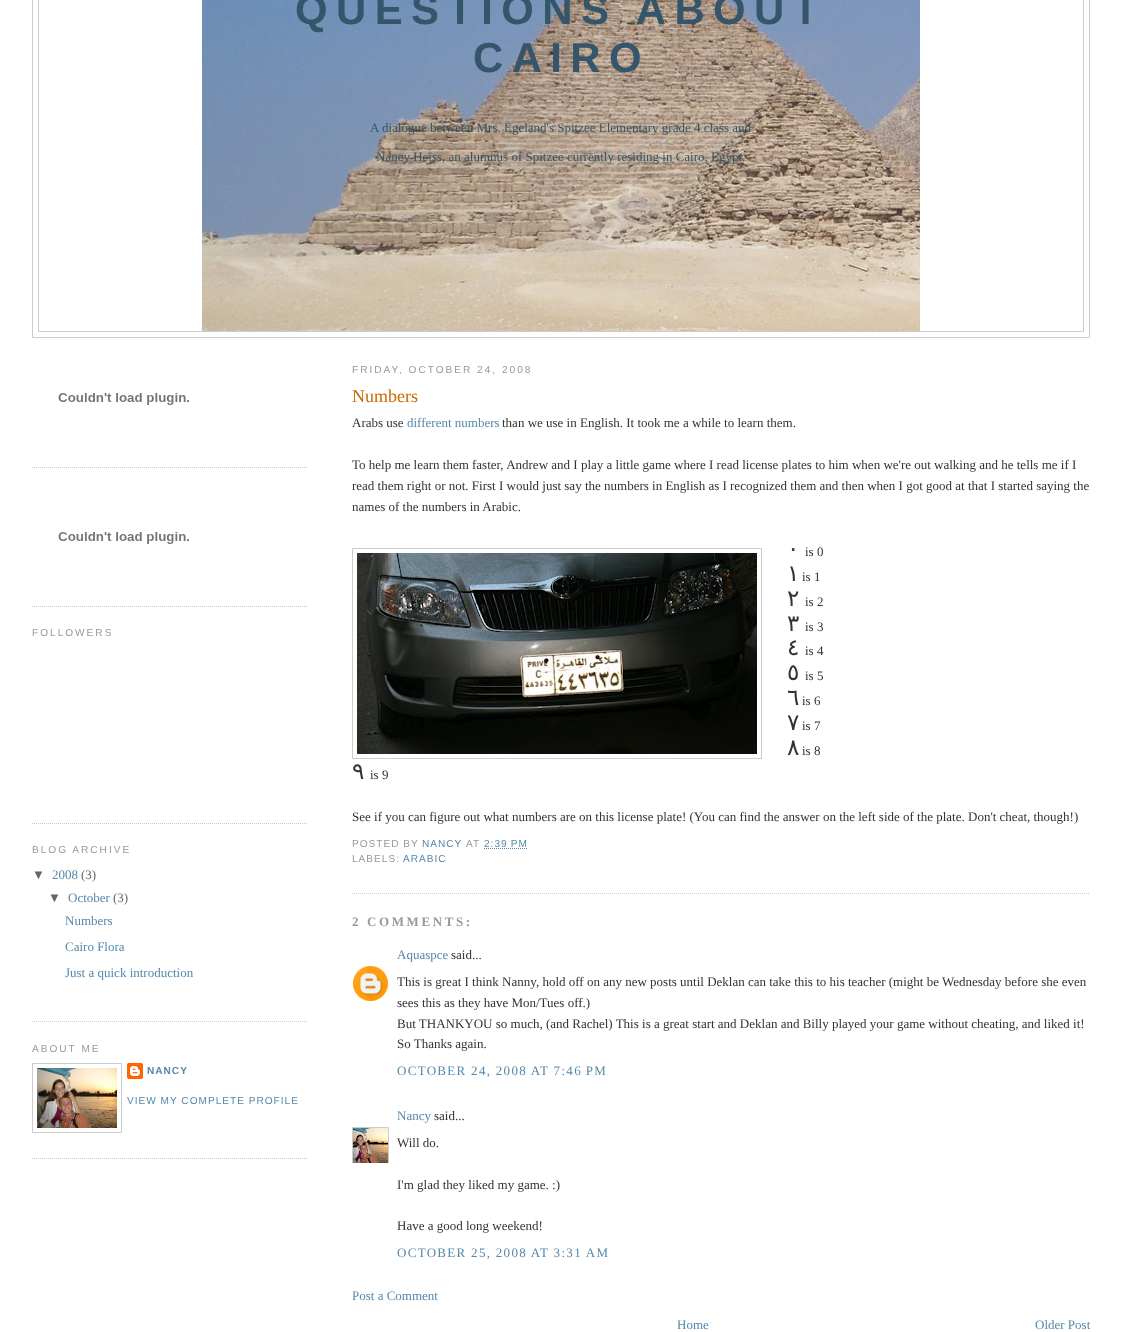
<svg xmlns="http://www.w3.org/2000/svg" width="1122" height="1332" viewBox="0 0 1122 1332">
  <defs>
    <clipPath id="clip1"><path d="M352 1127h37v36H352z"/></clipPath>
  </defs>
  <rect width="100%" height="100%" fill="#fff"/>
  <path d="M32.5 -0.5h1057v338H32.5z" fill="none" stroke="#ccc"/>
  <path d="M38.5 -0.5h1045v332H38.5z" fill="none" stroke="#ccc"/>
  <image x="202" y="0" width="718" height="331" href="img/1.png"/>
  <path d="M32 467.5H308" fill="none" stroke="#ccc" stroke-dasharray="1 1"/>
  <image x="58" y="393" width="131" height="12" href="img/2.png"/>
  <path d="M32 606.5H308" fill="none" stroke="#ccc" stroke-dasharray="1 1"/>
  <image x="58" y="532" width="131" height="12" href="img/2.png"/>
  <path d="M32 823.5H308" fill="none" stroke="#ccc" stroke-dasharray="1 1"/>
  <path d="M32 1021.5H308" fill="none" stroke="#ccc" stroke-dasharray="1 1"/>
  <path d="M32 1158.5H308" fill="none" stroke="#ccc" stroke-dasharray="1 1"/>
  <path d="M32.5 1063.5h89v69H32.5z" fill="none" stroke="#ccc"/>
  <image x="37" y="1068" width="80" height="60" href="img/3.png"/>
  <image x="127" y="1063" width="16" height="16" href="img/4.png"/>
  <path d="M352 893.5H1090" fill="none" stroke="#ccc" stroke-dasharray="1 1"/>
  <path d="M352.5 548.5h409v210H352.5z" fill="none" stroke="#ccc"/>
  <image x="357" y="553" width="400" height="201" href="img/5.png"/>
  <path d="M484 848.5H528" fill="none" stroke="#58a" stroke-dasharray="1 1"/>
  <image x="353" y="966" width="35" height="35" href="img/6.png"/>
  <g clip-path="url(#clip1)">
    <path d="M352.5 1127.5h36v36H352.5z" fill="none" stroke="#ccc"/>
  </g>
  <image x="353" y="1128" width="35" height="35" href="img/7.png"/>
  <g font-family="Liberation Sans" font-size="41.9" font-weight="bold" letter-spacing="8.4" fill="#35556a">
    <text x="295" y="24">QUESTIONS ABOUT</text>
    <text x="473" y="72">CAIRO</text>
  </g>
  <g font-family="Liberation Serif" font-size="13" fill="#35556a">
    <text x="370" y="132">A dialogue between Mrs. Egeland's Spitzee Elementary grade 4 class and</text>
    <text x="376" y="161">Nancy Heiss, an alumnus of Spitzee currently residing in Cairo, Egypt.</text>
  </g>
  <g font-family="Liberation Sans" font-size="10.1" letter-spacing="2" fill="#999">
    <text x="32" y="636">FOLLOWERS</text>
    <text x="32" y="853">BLOG ARCHIVE</text>
  </g>
  <text x="32" y="879" font-family="Liberation Sans" font-size="13" fill="#666">▼</text>
  <text x="52" y="879" font-family="Liberation Serif" font-size="13" fill="#58a">2008</text>
  <text x="81" y="879" font-family="Liberation Serif" font-size="13" fill="#666">(3)</text>
  <text x="48" y="902" font-family="Liberation Sans" font-size="13" fill="#666">▼</text>
  <text x="68" y="902" font-family="Liberation Serif" font-size="13" fill="#58a">October</text>
  <text x="113" y="902" font-family="Liberation Serif" font-size="13" fill="#666">(3)</text>
  <g font-family="Liberation Serif" font-size="13" fill="#58a">
    <text x="65" y="925">Numbers</text>
    <text x="65" y="951">Cairo Flora</text>
    <text x="65" y="977">Just a quick introduction</text>
  </g>
  <text x="32" y="1052" font-family="Liberation Sans" font-size="10.1" letter-spacing="2" fill="#999">ABOUT ME</text>
  <text x="147" y="1074" font-family="Liberation Sans" font-size="10.1" font-weight="bold" letter-spacing="1" fill="#58a">NANCY</text>
  <text x="127" y="1104" font-family="Liberation Sans" font-size="10.1" letter-spacing="1" fill="#58a">VIEW MY COMPLETE PROFILE</text>
  <text x="352" y="373" font-family="Liberation Sans" font-size="10.1" letter-spacing="2" fill="#999">FRIDAY, OCTOBER 24, 2008</text>
  <text x="352" y="402" font-family="Liberation Serif" font-size="18" fill="#c60">Numbers</text>
  <text x="352" y="427" font-family="Liberation Serif" font-size="13" fill="#333">Arabs use</text>
  <text x="407" y="427" font-family="Liberation Serif" font-size="13" fill="#58a">different numbers</text>
  <g font-family="Liberation Serif" font-size="13" fill="#333">
    <text x="502" y="427">than we use in English. It took me a while to learn them.</text>
    <text x="352" y="469">To help me learn them faster, Andrew and I play a little game where I read license plates to him when we're out walking and he tells me if I</text>
    <text x="352" y="490">read them right or not. First I would just say the numbers in English as I recognized them and then when I got good at that I started saying the</text>
    <text x="352" y="511">names of the numbers in Arabic.</text>
  </g>
  <text x="787" y="556" font-family="DejaVu Sans" font-size="23" fill="#333">٠</text>
  <text x="805" y="556" font-family="Liberation Serif" font-size="13" fill="#333">is 0</text>
  <text x="787" y="581" font-family="DejaVu Sans" font-size="23" fill="#333">١</text>
  <text x="802" y="581" font-family="Liberation Serif" font-size="13" fill="#333">is 1</text>
  <text x="787" y="606" font-family="DejaVu Sans" font-size="23" fill="#333">٢</text>
  <text x="805" y="606" font-family="Liberation Serif" font-size="13" fill="#333">is 2</text>
  <text x="787" y="631" font-family="DejaVu Sans" font-size="23" fill="#333">٣</text>
  <text x="805" y="631" font-family="Liberation Serif" font-size="13" fill="#333">is 3</text>
  <text x="787" y="655" font-family="DejaVu Sans" font-size="23" fill="#333">٤</text>
  <text x="805" y="655" font-family="Liberation Serif" font-size="13" fill="#333">is 4</text>
  <text x="787" y="680" font-family="DejaVu Sans" font-size="23" fill="#333">٥</text>
  <text x="805" y="680" font-family="Liberation Serif" font-size="13" fill="#333">is 5</text>
  <text x="787" y="705" font-family="DejaVu Sans" font-size="23" fill="#333">٦</text>
  <text x="802" y="705" font-family="Liberation Serif" font-size="13" fill="#333">is 6</text>
  <text x="787" y="730" font-family="DejaVu Sans" font-size="23" fill="#333">٧</text>
  <text x="802" y="730" font-family="Liberation Serif" font-size="13" fill="#333">is 7</text>
  <text x="787" y="755" font-family="DejaVu Sans" font-size="23" fill="#333">٨</text>
  <text x="802" y="755" font-family="Liberation Serif" font-size="13" fill="#333">is 8</text>
  <text x="352" y="779" font-family="DejaVu Sans" font-size="23" fill="#333">٩</text>
  <g font-family="Liberation Serif" font-size="13" fill="#333">
    <text x="370" y="779">is 9</text>
    <text x="352" y="821">See if you can figure out what numbers are on this license plate! (You can find the answer on the left side of the plate. Don't cheat, though!)</text>
  </g>
  <text x="352" y="847" font-family="Liberation Sans" font-size="10.1" letter-spacing="1" fill="#999">POSTED BY</text>
  <text x="422" y="847" font-family="Liberation Sans" font-size="10.1" letter-spacing="1" fill="#58a">NANCY</text>
  <text x="466" y="847" font-family="Liberation Sans" font-size="10.1" letter-spacing="1" fill="#999">AT</text>
  <text x="484" y="847" font-family="Liberation Sans" font-size="10.1" letter-spacing="1" fill="#58a">2:39 PM</text>
  <text x="352" y="862" font-family="Liberation Sans" font-size="10.1" letter-spacing="1" fill="#999">LABELS:</text>
  <text x="403" y="862" font-family="Liberation Sans" font-size="10.1" letter-spacing="1" fill="#58a">ARABIC</text>
  <text x="352" y="926" font-family="Liberation Serif" font-size="13" font-weight="bold" letter-spacing="2.6" fill="#999">2 COMMENTS:</text>
  <text x="397" y="959" font-family="Liberation Serif" font-size="13" fill="#58a">Aquaspce</text>
  <g font-family="Liberation Serif" font-size="13" fill="#333">
    <text x="451" y="959">said...</text>
    <text x="397" y="986">This is great I think Nanny, hold off on any new posts until Deklan can take this to his teacher (might be Wednesday before she even</text>
    <text x="397" y="1007">sees this as they have Mon/Tues off.)</text>
    <text x="397" y="1028">But THANKYOU so much, (and Rachel) This is a great start and Deklan and Billy played your game without cheating, and liked it!</text>
    <text x="397" y="1048">So Thanks again.</text>
  </g>
  <text x="397" y="1075" font-family="Liberation Serif" font-size="13" letter-spacing="1.3" fill="#58a">OCTOBER 24, 2008 AT 7:46 PM</text>
  <text x="397" y="1120" font-family="Liberation Serif" font-size="13" fill="#58a">Nancy</text>
  <g font-family="Liberation Serif" font-size="13" fill="#333">
    <text x="434" y="1120">said...</text>
    <text x="397" y="1147">Will do.</text>
    <text x="397" y="1189">I'm glad they liked my game. :)</text>
    <text x="397" y="1230">Have a good long weekend!</text>
  </g>
  <text x="397" y="1257" font-family="Liberation Serif" font-size="13" letter-spacing="1.3" fill="#58a">OCTOBER 25, 2008 AT 3:31 AM</text>
  <g font-family="Liberation Serif" font-size="13" fill="#58a">
    <text x="352" y="1300">Post a Comment</text>
    <text x="677" y="1329">Home</text>
    <text x="1035" y="1329">Older Post</text>
  </g>
</svg>
